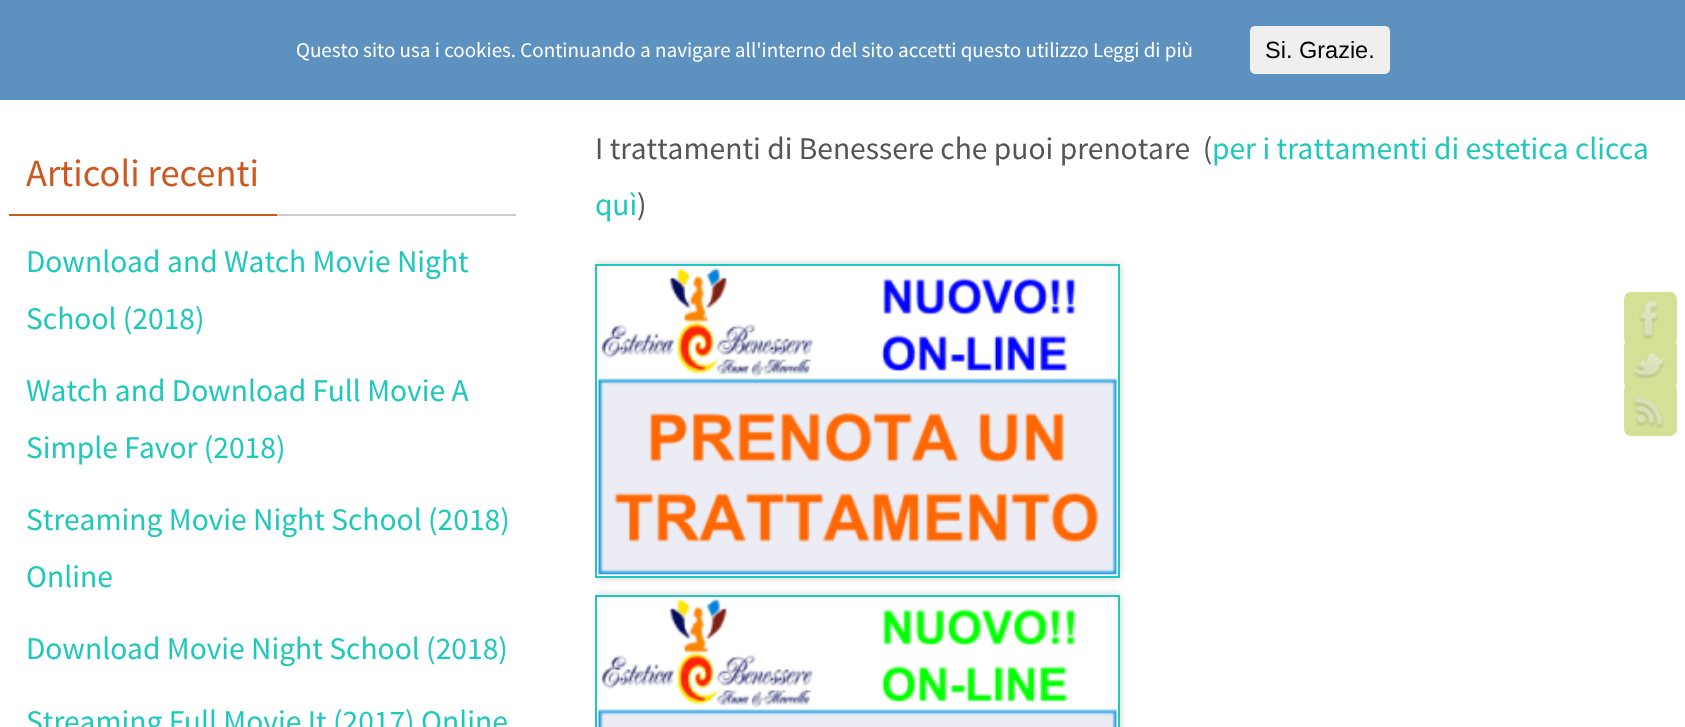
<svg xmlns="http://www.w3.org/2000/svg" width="1685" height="727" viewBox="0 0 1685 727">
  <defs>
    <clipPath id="clip1"><path d="M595 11h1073v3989H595z"/></clipPath>
    <clipPath id="clip2"><path d="M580 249H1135V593H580ZM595 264H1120V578H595Z" clip-rule="evenodd"/></clipPath>
    <clipPath id="clip3"><path d="M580 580H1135V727H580ZM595 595H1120V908H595Z" clip-rule="evenodd"/></clipPath>
  </defs>
  <rect width="100%" height="100%" fill="#fff"/>
  <path d="M0 0h1685v100H0z" fill="#5d91bf"/>
  <rect x="1250" y="26" width="140" height="48" rx="5" fill="#efefef"/>
  <path d="M277 214h239v2H277z" fill="#ccc"/>
  <path d="M9 214h268v2H9z" fill="#cb5920"/>
  <g clip-path="url(#clip1)">
    <g clip-path="url(#clip2)">
      <path d="M595 264h525v314H595z" fill="#cdcdcd" filter="blur(4.5px)"/>
    </g>
  </g>
  <path d="M596 265h523v312H596z" fill="none" stroke="#20c9bc" stroke-width="2"/>
  <image x="598" y="268" width="519" height="307" href="img/1.png"/>
  <g clip-path="url(#clip1)">
    <g clip-path="url(#clip3)">
      <path d="M595 595h525v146H595z" fill="#cdcdcd" filter="blur(4.5px)"/>
    </g>
  </g>
  <path d="M596 596h523v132H596z" fill="none" stroke="#20c9bc" stroke-width="2"/>
  <image x="598" y="598" width="519" height="129" href="img/2.png"/>
  <rect x="1624" y="292" width="53" height="53" rx="7" fill="#d6df96"/>
  <rect x="1624" y="338" width="53" height="52" rx="7" fill="#d6df96"/>
  <image x="1639" y="300" width="19" height="39" href="img/3.png"/>
  <image x="1633" y="352" width="32" height="27" href="img/4.png"/>
  <rect x="1624" y="383" width="53" height="53" rx="7" fill="#d6df96"/>
  <image x="1633" y="397" width="31" height="31" href="img/5.png"/>
  <text x="296" y="57" font-family="Source Sans Pro" font-size="21" fill="#fff">Questo sito usa i cookies. Continuando a navigare all'interno del sito accetti questo utilizzo Leggi di più</text>
  <text x="1265" y="58" font-family="Liberation Sans" font-size="23.5" fill="#000">Si. Grazie.</text>
  <text x="26" y="186" font-family="Source Sans Pro" font-size="38.5" fill="#cb5920">Articoli recenti</text>
  <g font-family="Source Sans Pro" font-size="31.5" fill="#1ec8bb">
    <text x="26" y="272">Download and Watch Movie Night</text>
    <text x="26" y="329">School (2018)</text>
    <text x="26" y="401">Watch and Download Full Movie A</text>
    <text x="26" y="458">Simple Favor (2018)</text>
    <text x="26" y="530">Streaming Movie Night School (2018)</text>
    <text x="26" y="587">Online</text>
    <text x="26" y="659">Download Movie Night School (2018)</text>
    <text x="26" y="732">Streaming Full Movie It (2017) Online</text>
  </g>
  <text x="595" y="159" font-family="Source Sans Pro" font-size="31.5" fill="#555" xml:space="preserve">I trattamenti di Benessere che puoi prenotare  (</text>
  <g font-family="Source Sans Pro" font-size="31.5" fill="#1ec8bb">
    <text x="1212" y="159">per i trattamenti di estetica clicca</text>
    <text x="595" y="215">quì</text>
  </g>
  <text x="637" y="215" font-family="Source Sans Pro" font-size="31.5" fill="#555">)</text>
</svg>
